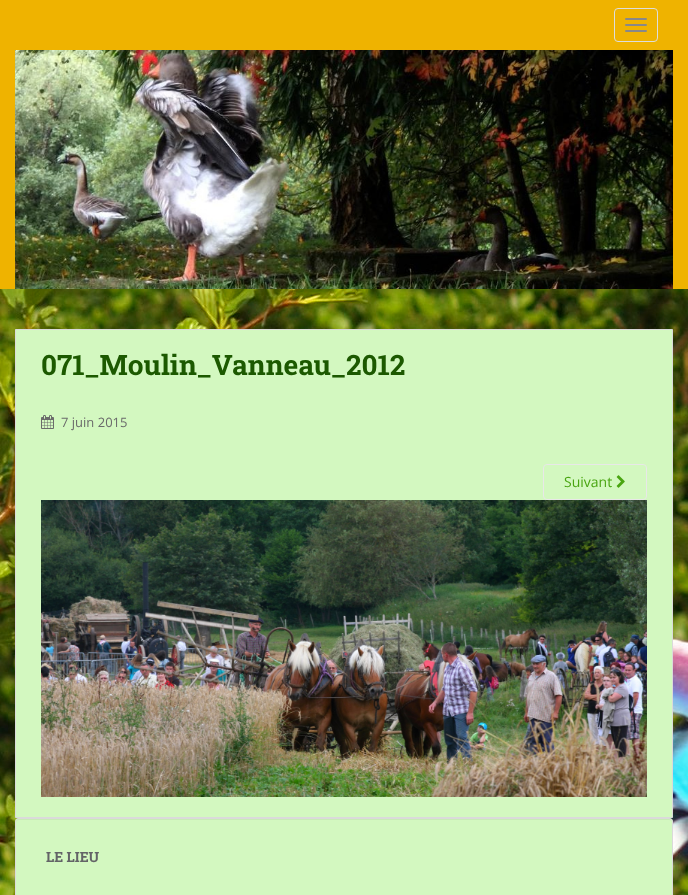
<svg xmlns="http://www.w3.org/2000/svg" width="688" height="895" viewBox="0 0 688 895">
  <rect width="100%" height="100%" fill="#fff"/>
  <image x="0" y="289" width="688" height="606" href="img/1.png"/>
  <path d="M0 0h688v289H0z" fill="#efb300"/>
  <rect x="614.5" y="8.5" width="43" height="33" rx="3.5" fill="none" stroke="#ddd"/>
  <rect x="625" y="18" width="22" height="2" rx="1" fill="#888"/>
  <rect x="625" y="24" width="22" height="2" rx="1" fill="#888"/>
  <rect x="625" y="30" width="22" height="2" rx="1" fill="#888"/>
  <image x="15" y="50" width="658" height="239" href="img/2.png"/>
  <path d="M15.5 329.5h657v488H15.5z" fill="#d3f8c0" stroke="#dadada"/>
  <image x="41" y="415" width="13" height="14" href="img/3.png"/>
  <rect x="543.5" y="464.5" width="103" height="35" rx="3.5" fill="none" stroke="#e8e8e8"/>
  <image x="616" y="475" width="9" height="13" href="img/4.png"/>
  <image x="41" y="500" width="606" height="297" href="img/5.png"/>
  <rect x="15" y="818" width="658" height="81" rx="4" fill="#d3f8c0"/>
  <path d="M19 820H669C671 820 672 821 672 823C672 821 671 819 669 819H19C17 819 16 821 16 823C16 821 17 820 19 820Z" fill="#c8ecb6"/>
  <rect x="15.5" y="818.5" width="657" height="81" rx="3.5" fill="none" stroke="#dadada"/>
  <text x="41" y="375" font-family="Roboto Slab" font-size="28" font-weight="bold" fill="#1c5900">071_Moulin_Vanneau_2012</text>
  <text x="61" y="427" font-family="Open Sans" font-size="13" fill="#6b6b6b">7 juin 2015</text>
  <text x="564" y="487" font-family="Open Sans" font-size="14" fill="#49a510">Suivant</text>
  <text x="46" y="862" font-family="Roboto Slab" font-size="14" font-weight="bold" fill="#636467">LE LIEU</text>
</svg>
